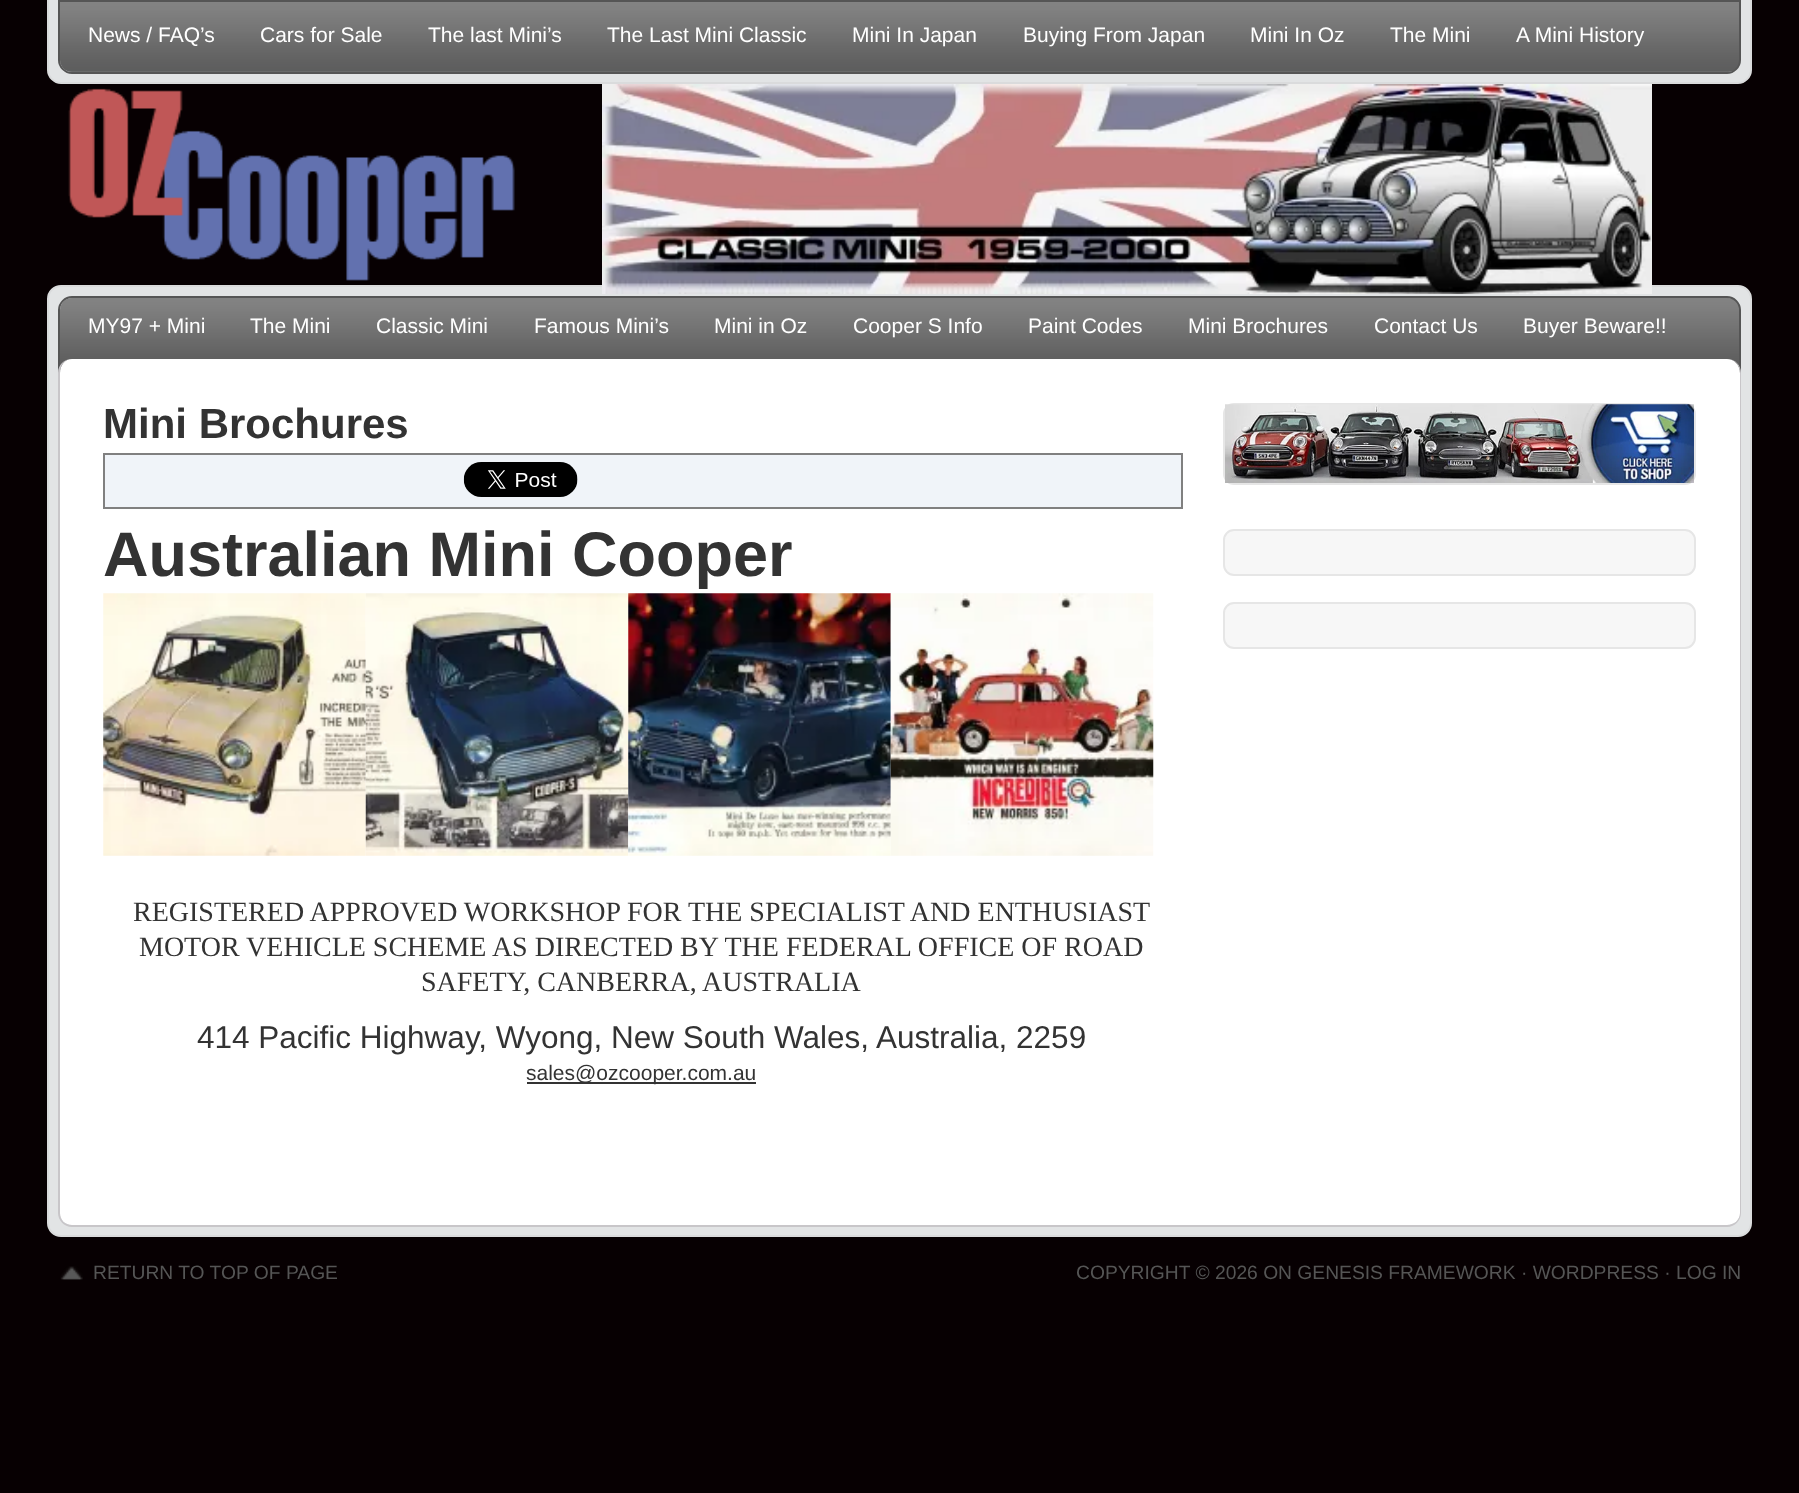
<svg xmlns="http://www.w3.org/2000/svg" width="1799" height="1493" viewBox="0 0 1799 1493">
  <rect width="100%" height="100%" fill="#070002"/>
  <path d="M48-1H1751V70C1751 77 1745 83 1738 83H61C54 83 48 77 48 70Z" fill="#e2e4e5" stroke="#dadbdc" stroke-width="2"/>
  <path d="M60 2H1740V60C1740 66.5 1734.5 72 1728 72H72C65.5 72 60 66.5 60 60Z" fill="#6e6e6e"/>
  <image x="60" y="2" width="1679" height="70" href="img/1.png"/>
  <path d="M59 1H1740V60C1740 67 1734 73 1727 73H72C65 73 59 67 59 60Z" fill="none" stroke="#555" stroke-width="2"/>
  <image x="68" y="88" width="447" height="193" href="img/2.png"/>
  <rect x="48" y="286" width="1703" height="950" rx="13" fill="#e2e4e5" stroke="#dadbdc" stroke-width="2"/>
  <image x="602" y="84" width="1050" height="210" href="img/3.png"/>
  <path d="M72 298H1728C1734.5 298 1740 303.5 1740 310V371H60V310C60 303.5 65.5 298 72 298Z" fill="#6e6e6e"/>
  <image x="60" y="298" width="1679" height="73" href="img/4.png"/>
  <path d="M72 297H1727C1734 297 1740 303 1740 310V372H59V310C59 303 65 297 72 297Z" fill="none" stroke="#555" stroke-width="2"/>
  <path d="M72 359H1727C1734 359 1740 365 1740 373V1213C1740 1220 1734 1225 1727 1225H72C65 1225 60 1220 60 1213V373C60 365 65 359 72 359Z" fill="#fff"/>
  <path d="M72 359H1727C1735 359 1741 365 1741 373V1213C1741 1220 1735 1227 1727 1227H72C64 1227 58 1220 58 1213V373C58 365 64 359 72 359ZM72 359H1727C1734 359 1740 365 1740 373V1213C1740 1220 1734 1225 1727 1225H72C65 1225 60 1220 60 1213V373C60 365 65 359 72 359Z" fill="#c8c6c9" fill-rule="evenodd"/>
  <path d="M104 454h1078v54H104z" fill="#f0f4f9" stroke="#808080" stroke-width="2"/>
  <image x="463" y="462" width="115" height="35" href="img/5.png"/>
  <image x="103" y="593" width="263" height="263" href="img/6.png"/>
  <image x="365" y="593" width="264" height="263" href="img/7.png"/>
  <image x="628" y="593" width="263" height="263" href="img/8.png"/>
  <image x="890" y="593" width="264" height="263" href="img/9.png"/>
  <path d="M527 1082h229v2H527z" fill="#333"/>
  <rect x="1224" y="404" width="471" height="80" rx="10" fill="none" stroke="#e6e6e6" stroke-width="2"/>
  <image x="1225" y="404" width="469" height="79" href="img/10.png"/>
  <rect x="1224" y="530" width="471" height="45" rx="10" fill="#f7f7f7" stroke="#e6e6e6" stroke-width="2"/>
  <rect x="1224" y="603" width="471" height="45" rx="10" fill="#f7f7f7" stroke="#e6e6e6" stroke-width="2"/>
  <image x="60" y="1266" width="23" height="14" href="img/11.png"/>
  <g font-family="Liberation Sans" font-size="21" fill="#fff">
    <text x="88" y="42">News / FAQ’s</text>
    <text x="260" y="42">Cars for Sale</text>
    <text x="428" y="42">The last Mini’s</text>
    <text x="607" y="42">The Last Mini Classic</text>
    <text x="852" y="42">Mini In Japan</text>
    <text x="1023" y="42">Buying From Japan</text>
    <text x="1250" y="42">Mini In Oz</text>
    <text x="1390" y="42">The Mini</text>
    <text x="1516" y="42">A Mini History</text>
    <text x="88" y="333">MY97 + Mini</text>
    <text x="250" y="333">The Mini</text>
    <text x="376" y="333">Classic Mini</text>
    <text x="534" y="333">Famous Mini’s</text>
    <text x="714" y="333">Mini in Oz</text>
    <text x="853" y="333">Cooper S Info</text>
    <text x="1028" y="333">Paint Codes</text>
    <text x="1188" y="333">Mini Brochures</text>
    <text x="1374" y="333">Contact Us</text>
    <text x="1523" y="333">Buyer Beware!!</text>
  </g>
  <text x="103" y="438" font-family="Liberation Sans" font-size="42" font-weight="bold" fill="#333">Mini Brochures</text>
  <text x="103" y="576" font-family="Liberation Sans" font-size="63" font-weight="bold" fill="#333">Australian Mini Cooper</text>
  <g font-family="Liberation Serif" font-size="28" fill="#333">
    <text x="133" y="921">REGISTERED APPROVED WORKSHOP FOR THE SPECIALIST AND ENTHUSIAST</text>
    <text x="139" y="956">MOTOR VEHICLE SCHEME AS DIRECTED BY THE FEDERAL OFFICE OF ROAD</text>
    <text x="421" y="991">SAFETY, CANBERRA, AUSTRALIA</text>
  </g>
  <text x="197" y="1048" font-family="Liberation Sans" font-size="31.5" fill="#333">414 Pacific Highway, Wyong, New South Wales, Australia, 2259</text>
  <text x="526" y="1080" font-family="Liberation Sans" font-size="21" fill="#333">sales@ozcooper.com.au</text>
  <g font-family="Liberation Sans" font-size="19.25" fill="#555">
    <text x="93" y="1279">RETURN TO TOP OF PAGE</text>
    <text x="1076" y="1279">COPYRIGHT © 2026 ON GENESIS FRAMEWORK · WORDPRESS · LOG IN</text>
  </g>
</svg>
